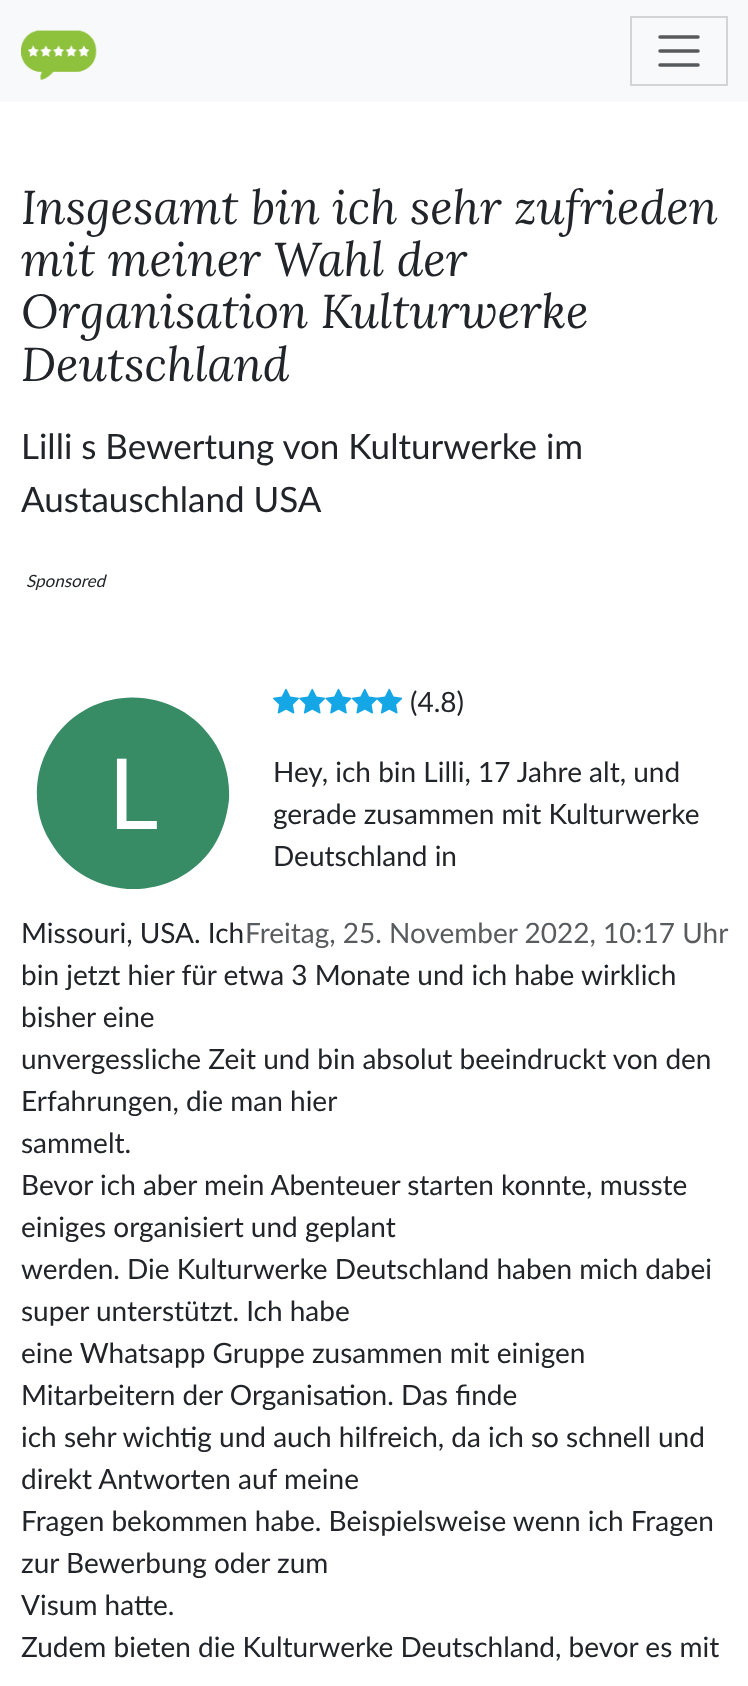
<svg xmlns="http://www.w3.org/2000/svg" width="748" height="1686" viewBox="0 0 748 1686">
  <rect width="100%" height="100%" fill="#fff"/>
  <path d="M0 0h748v102H0z" fill="#f8f9fa"/>
  <image x="21" y="29" width="76" height="51" href="img/1.png"/>
  <path d="M631 17h96v68H631z" fill="none" stroke="#d3d4d5" stroke-width="2"/>
  <path d="M660 37H698M660 51H698M660 65H698" fill="none" stroke="#575a5d" stroke-width="3.5" stroke-linecap="round"/>
  <image x="273" y="688" width="26" height="26" href="img/2.png"/>
  <image x="299" y="688" width="27" height="26" href="img/3.png"/>
  <image x="325" y="688" width="27" height="26" href="img/4.png"/>
  <image x="351" y="688" width="27" height="26" href="img/5.png"/>
  <image x="376" y="688" width="27" height="26" href="img/6.png"/>
  <path d="M216 745C226 762 230 781 229 800C227 817 222 833 213 847C173 906 85 902 50 841C40 825 36 806 37 787C38 770 44 754 53 740C92 681 180 684 216 745Z" fill="#388c65"/>
  <g font-family="Lora" font-size="47.5" font-style="italic" fill="#212529">
    <text x="21" y="224">Insgesamt bin ich sehr zufrieden</text>
    <text x="21" y="276">mit meiner Wahl der</text>
    <text x="21" y="328">Organisation Kulturwerke</text>
    <text x="21" y="381">Deutschland</text>
  </g>
  <g font-family="Lato" font-size="35" fill="#212529">
    <text x="21" y="459">Lilli s Bewertung von Kulturwerke im</text>
    <text x="21" y="512">Austauschland USA</text>
  </g>
  <text x="26" y="587" font-family="Lato" font-size="17" font-style="italic" fill="#212529">Sponsored</text>
  <text x="410" y="712" font-family="Lato" font-size="28" fill="#212529">(4.8)</text>
  <text x="108" y="829" font-family="Lato" font-size="98" fill="#fff">L</text>
  <g font-family="Lato" font-size="28" fill="#212529">
    <text x="273" y="782">Hey, ich bin Lilli, 17 Jahre alt, und</text>
    <text x="273" y="824">gerade zusammen mit Kulturwerke</text>
    <text x="273" y="866">Deutschland in</text>
    <text x="21" y="943">Missouri, USA. Ich</text>
    <text x="21" y="985">bin jetzt hier für etwa 3 Monate und ich habe wirklich</text>
    <text x="21" y="1027">bisher eine</text>
    <text x="21" y="1069">unvergessliche Zeit und bin absolut beeindruckt von den</text>
    <text x="21" y="1111">Erfahrungen, die man hier</text>
    <text x="21" y="1153">sammelt.</text>
    <text x="21" y="1195">Bevor ich aber mein Abenteuer starten konnte, musste</text>
    <text x="21" y="1237">einiges organisiert und geplant</text>
    <text x="21" y="1279">werden. Die Kulturwerke Deutschland haben mich dabei</text>
    <text x="21" y="1321">super unterstützt. Ich habe</text>
    <text x="21" y="1363">eine Whatsapp Gruppe zusammen mit einigen</text>
    <text x="21" y="1405">Mitarbeitern der Organisation. Das finde</text>
    <text x="21" y="1447">ich sehr wichtig und auch hilfreich, da ich so schnell und</text>
    <text x="21" y="1489">direkt Antworten auf meine</text>
    <text x="21" y="1531">Fragen bekommen habe. Beispielsweise wenn ich Fragen</text>
    <text x="21" y="1573">zur Bewerbung oder zum</text>
    <text x="21" y="1615">Visum hatte.</text>
    <text x="21" y="1657">Zudem bieten die Kulturwerke Deutschland, bevor es mit</text>
  </g>
  <text x="245" y="943" font-family="Lato" font-size="28" fill="#595c5f">Freitag, 25. November 2022, 10:17 Uhr</text>
</svg>
